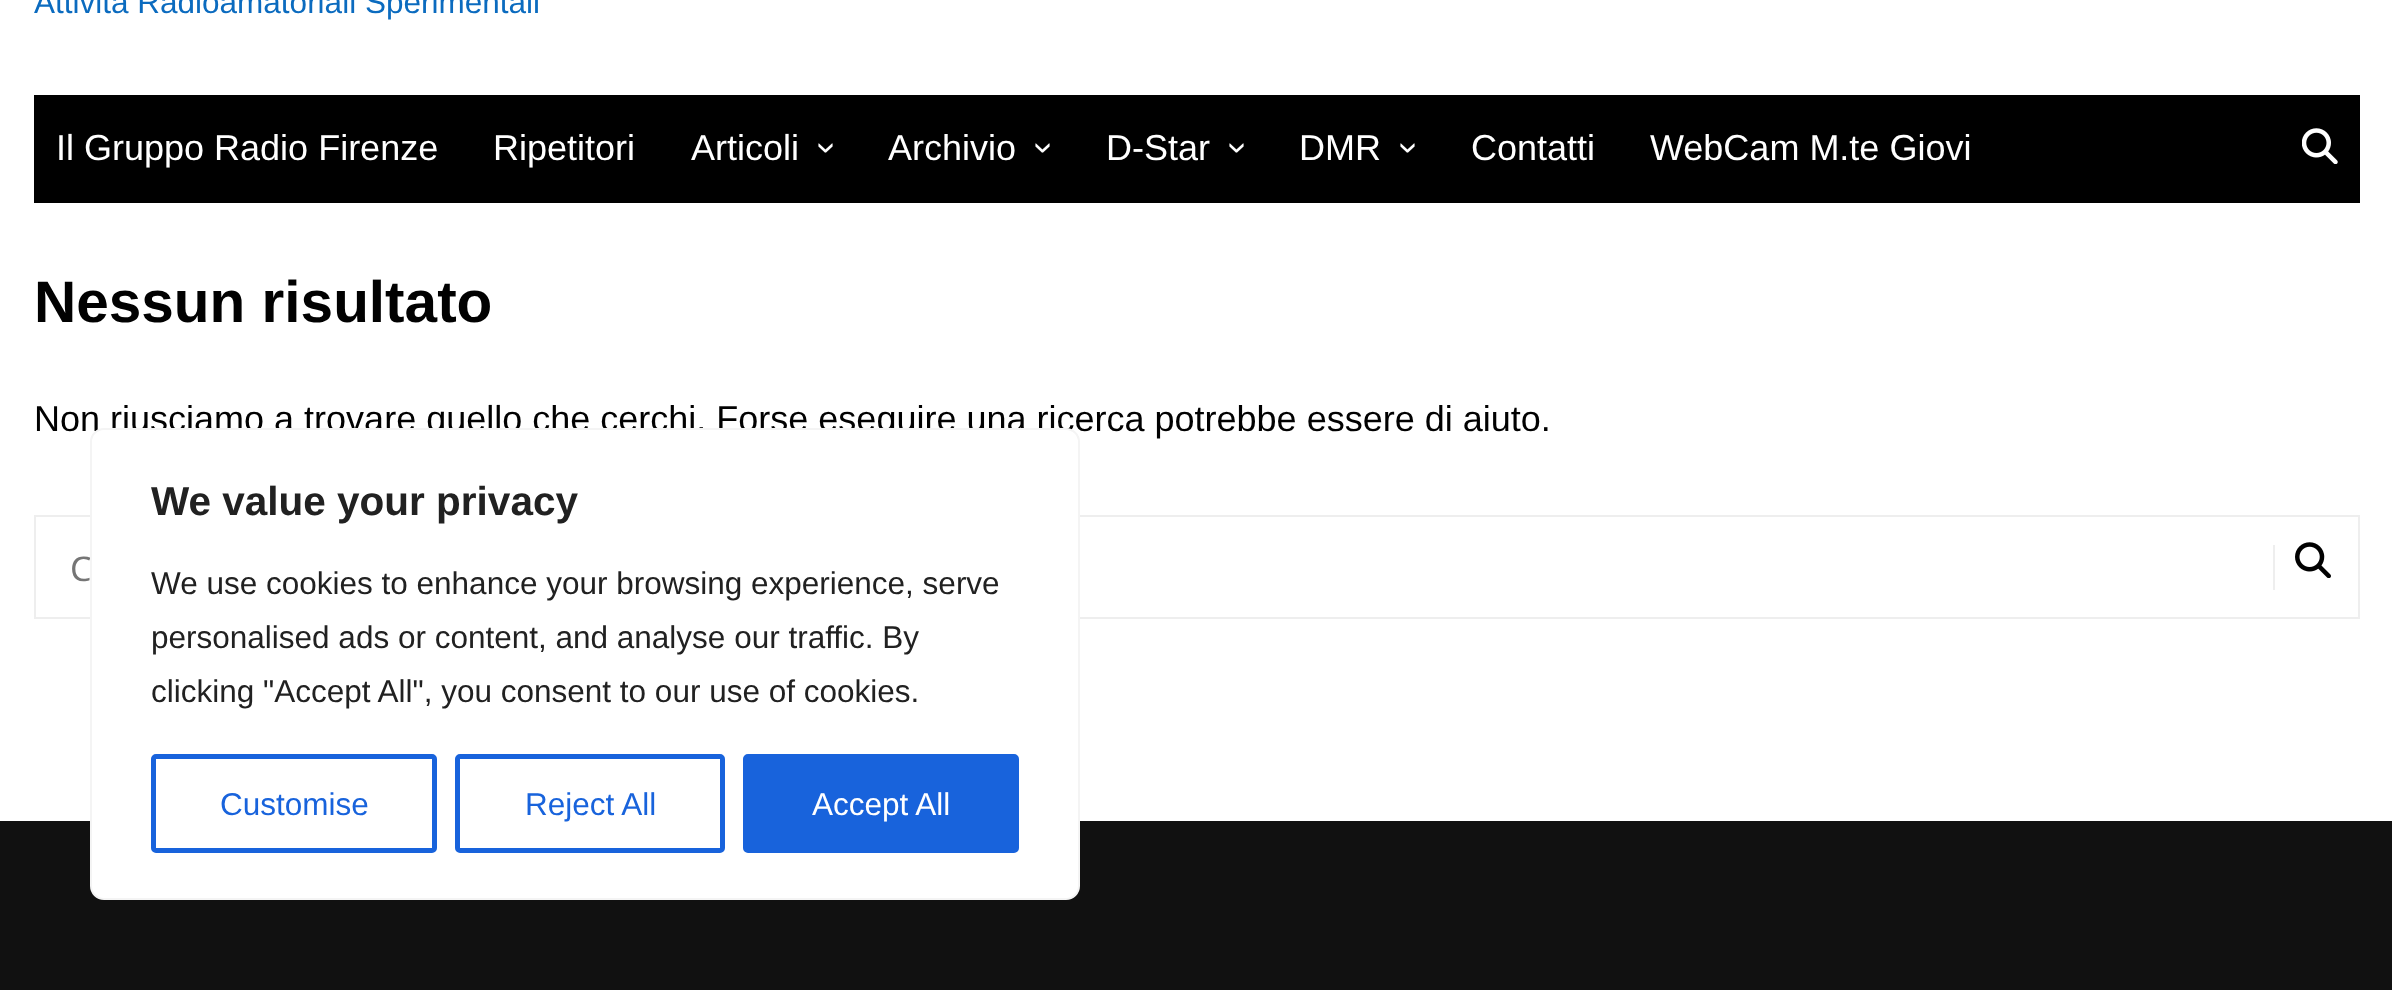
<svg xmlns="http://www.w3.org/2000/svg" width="2392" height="990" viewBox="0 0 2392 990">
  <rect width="100%" height="100%" fill="#fff"/>
  <path d="M34 95h2326v108H34z" fill="#000"/>
  <image x="2302" y="128" width="36" height="36" href="img/1.png"/>
  <path d="M35 516h2324v102H35z" fill="none" stroke="#eee" stroke-width="2"/>
  <path d="M2273 545h2v45H2273z" fill="#eee"/>
  <image x="2295" y="542" width="36" height="36" href="img/2.png"/>
  <path d="M0 821h2392v169H0z" fill="#111"/>
  <text x="34" y="13" font-family="Liberation Sans" font-size="31.5" fill="#0b6bbf">Attività Radioamatoriali Sperimentali</text>
  <g font-family="Liberation Sans" font-size="36" fill="#fff">
    <text x="56" y="160">Il Gruppo Radio Firenze</text>
    <text x="493" y="160">Ripetitori</text>
    <text x="691" y="160">Articoli</text>
    <text x="816" y="142" transform="rotate(90 816 142)">›</text>
    <text x="888" y="160">Archivio</text>
    <text x="1033" y="142" transform="rotate(90 1033 142)">›</text>
    <text x="1106" y="160">D-Star</text>
    <text x="1227" y="142" transform="rotate(90 1227 142)">›</text>
    <text x="1299" y="160">DMR</text>
    <text x="1398" y="142" transform="rotate(90 1398 142)">›</text>
    <text x="1471" y="160">Contatti</text>
    <text x="1650" y="160">WebCam M.te Giovi</text>
  </g>
  <text x="34" y="322" font-family="Liberation Sans" font-size="58.5" font-weight="bold" fill="#010101">Nessun risultato</text>
  <text x="34" y="431" font-family="Liberation Sans" font-size="36" fill="#010101">Non riusciamo a trovare quello che cerchi. Forse eseguire una ricerca potrebbe essere di aiuto.</text>
  <text x="70" y="581" font-family="Noto Sans" font-size="34" fill="#757575">C</text>
  <rect x="91" y="429" width="988" height="470" rx="13" fill="#fff" stroke="#f4f4f4" stroke-width="2"/>
  <text x="151" y="515" font-family="Liberation Sans" font-size="40.5" font-weight="bold" fill="#212121">We value your privacy</text>
  <g font-family="Liberation Sans" font-size="31.5" fill="#212121">
    <text x="151" y="594">We use cookies to enhance your browsing experience, serve</text>
    <text x="151" y="648">personalised ads or content, and analyse our traffic. By</text>
    <text x="151" y="702">clicking "Accept All", you consent to our use of cookies.</text>
  </g>
  <rect x="153.5" y="756.5" width="281" height="94" rx="2.5" fill="none" stroke="#1863dc" stroke-width="5"/>
  <text x="220" y="815" font-family="Liberation Sans" font-size="31.5" fill="#1863dc">Customise</text>
  <rect x="457.5" y="756.5" width="265" height="94" rx="2.5" fill="none" stroke="#1863dc" stroke-width="5"/>
  <text x="525" y="815" font-family="Liberation Sans" font-size="31.5" fill="#1863dc">Reject All</text>
  <rect x="745.5" y="756.5" width="271" height="94" rx="2.5" fill="#1863dc" stroke="#1863dc" stroke-width="5"/>
  <text x="812" y="815" font-family="Liberation Sans" font-size="31.5" fill="#fff">Accept All</text>
</svg>
